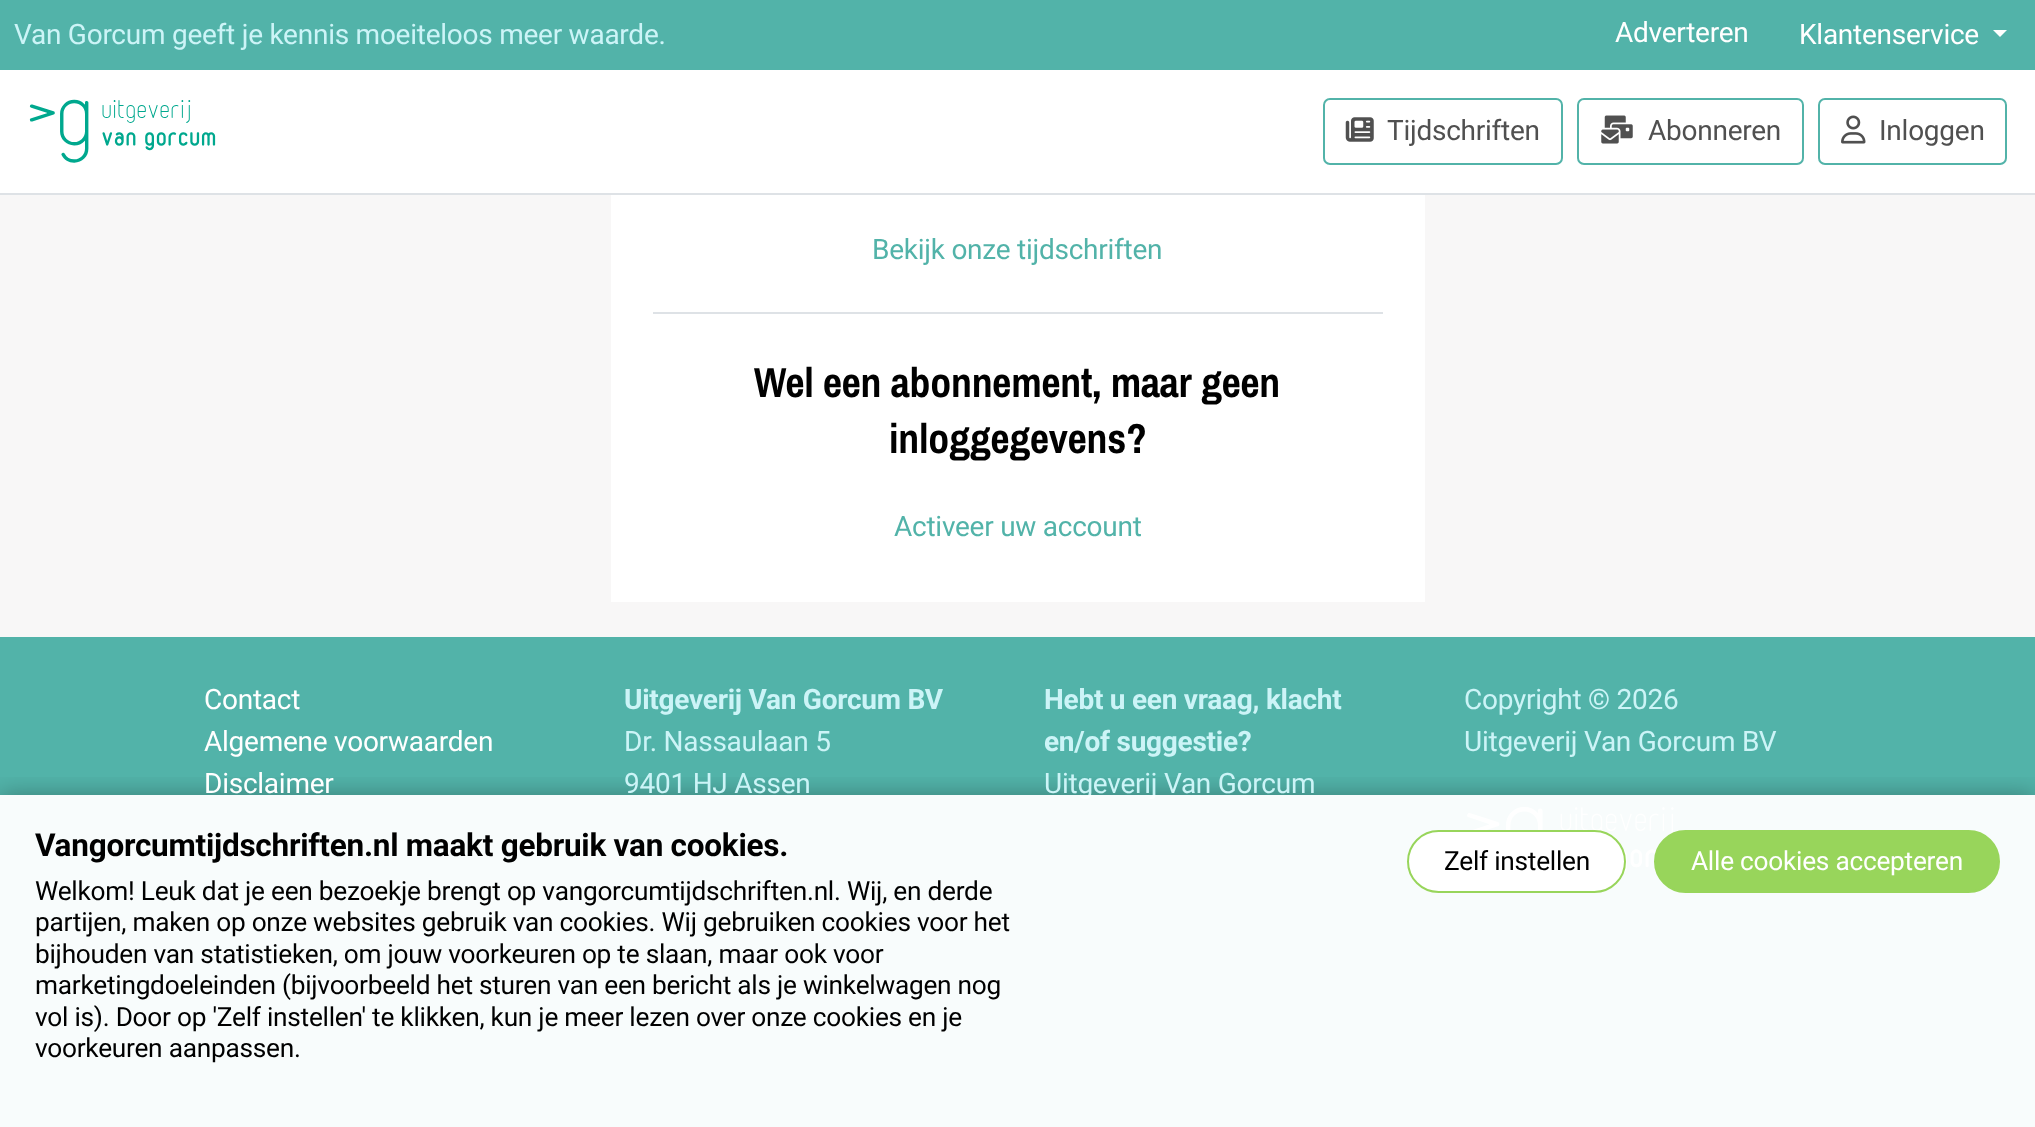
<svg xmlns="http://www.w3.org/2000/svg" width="2035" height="1127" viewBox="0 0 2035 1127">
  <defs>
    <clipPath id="clip1"><path d="M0 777h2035v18H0z"/></clipPath>
  </defs>
  <rect width="100%" height="100%" fill="#f8f7f7"/>
  <path d="M0 70h2035v123H0z" fill="#fff"/>
  <path d="M0 0h2035v70H0z" fill="#52b3a9"/>
  <path d="M1993 30H2007L2000 37Z" fill="#fff"/>
  <path d="M0 193h2035v2H0z" fill="#dee2e6"/>
  <image x="29" y="99" width="187" height="64" href="img/1.png"/>
  <rect x="1324" y="99" width="238" height="65" rx="6" fill="none" stroke="#52b3a9" stroke-width="2"/>
  <image x="1345" y="117" width="29" height="25" href="img/2.png"/>
  <rect x="1578" y="99" width="225" height="65" rx="6" fill="none" stroke="#52b3a9" stroke-width="2"/>
  <image x="1601" y="115" width="32" height="29" href="img/3.png"/>
  <rect x="1819" y="99" width="187" height="65" rx="6" fill="none" stroke="#52b3a9" stroke-width="2"/>
  <image x="1841" y="115" width="25" height="29" href="img/4.png"/>
  <path d="M611 195h814v407H611z" fill="#fff"/>
  <path d="M653 312h730v2H653z" fill="#dee2e6"/>
  <path d="M0 637h2035v490H0z" fill="#52b3a9"/>
  <image x="1467" y="807" width="207" height="66" href="img/5.png"/>
  <g clip-path="url(#clip1)">
    <path d="M0 795h2035v332H0z" fill="#0000004d" filter="blur(12px)"/>
  </g>
  <text x="14" y="44" font-family="Roboto" font-size="28" letter-spacing="-0.25" fill="#ccf4f7">Van Gorcum geeft je kennis moeiteloos meer waarde.</text>
  <g font-family="Roboto" font-size="28" letter-spacing="-0.25" fill="#fff">
    <text x="1615" y="42">Adverteren</text>
    <text x="1799" y="44">Klantenservice</text>
  </g>
  <g font-family="Roboto" font-size="28" letter-spacing="-0.25" fill="#505050">
    <text x="1387" y="140">Tijdschriften</text>
    <text x="1648" y="140">Abonneren</text>
    <text x="1879" y="140">Inloggen</text>
  </g>
  <text x="872" y="259" font-family="Roboto" font-size="28" letter-spacing="-0.25" fill="#52b3a9">Bekijk onze tijdschriften</text>
  <g font-family="Pragati Narrow" font-size="45.5" font-weight="bold" letter-spacing="-0.25" fill="#000">
    <text x="754" y="397">Wel een abonnement, maar geen</text>
    <text x="889" y="453">inloggegevens?</text>
  </g>
  <text x="894" y="536" font-family="Roboto" font-size="28" letter-spacing="-0.25" fill="#52b3a9">Activeer uw account</text>
  <g font-family="Roboto" font-size="28" letter-spacing="-0.25" fill="#fff">
    <text x="204" y="709">Contact</text>
    <text x="204" y="751">Algemene voorwaarden</text>
    <text x="204" y="793">Disclaimer</text>
  </g>
  <text x="624" y="709" font-family="Roboto" font-size="28" font-weight="bold" letter-spacing="-0.25" fill="#ccf4f7">Uitgeverij Van Gorcum BV</text>
  <g font-family="Roboto" font-size="28" letter-spacing="-0.25" fill="#ccf4f7">
    <text x="624" y="751">Dr. Nassaulaan 5</text>
    <text x="624" y="793">9401 HJ Assen</text>
  </g>
  <g font-family="Roboto" font-size="28" font-weight="bold" letter-spacing="-0.25" fill="#ccf4f7">
    <text x="1044" y="709">Hebt u een vraag, klacht</text>
    <text x="1044" y="751">en/of suggestie?</text>
  </g>
  <g font-family="Roboto" font-size="28" letter-spacing="-0.25" fill="#ccf4f7">
    <text x="1044" y="793">Uitgeverij Van Gorcum</text>
    <text x="1464" y="709">Copyright © 2026</text>
    <text x="1464" y="751">Uitgeverij Van Gorcum BV</text>
  </g>
  <path d="M0 795h2035v332H0z" fill="#fffffff5"/>
  <text x="35" y="856" font-family="Roboto" font-size="31.5" font-weight="bold" letter-spacing="-0.25" fill="#000">Vangorcumtijdschriften.nl maakt gebruik van cookies.</text>
  <g font-family="Roboto" font-size="26.25" letter-spacing="-0.25" fill="#000">
    <text x="35" y="900">Welkom! Leuk dat je een bezoekje brengt op vangorcumtijdschriften.nl. Wij, en derde</text>
    <text x="35" y="931">partijen, maken op onze websites gebruik van cookies. Wij gebruiken cookies voor het</text>
    <text x="35" y="963">bijhouden van statistieken, om jouw voorkeuren op te slaan, maar ook voor</text>
    <text x="35" y="994">marketingdoeleinden (bijvoorbeeld het sturen van een bericht als je winkelwagen nog</text>
    <text x="35" y="1026">vol is). Door op 'Zelf instellen' te klikken, kun je meer lezen over onze cookies en je</text>
    <text x="35" y="1057">voorkeuren aanpassen.</text>
  </g>
  <rect x="1408" y="831" width="217" height="61" rx="30.5" fill="#fff" stroke="#98d55b" stroke-width="2"/>
  <text x="1444" y="870" font-family="Roboto" font-size="26.25" letter-spacing="-0.25" fill="#000">Zelf instellen</text>
  <rect x="1655" y="831" width="344" height="61" rx="30.5" fill="#98d55b" stroke="#98d55b" stroke-width="2"/>
  <text x="1691" y="870" font-family="Roboto" font-size="26.25" letter-spacing="-0.25" fill="#fff">Alle cookies accepteren</text>
</svg>
